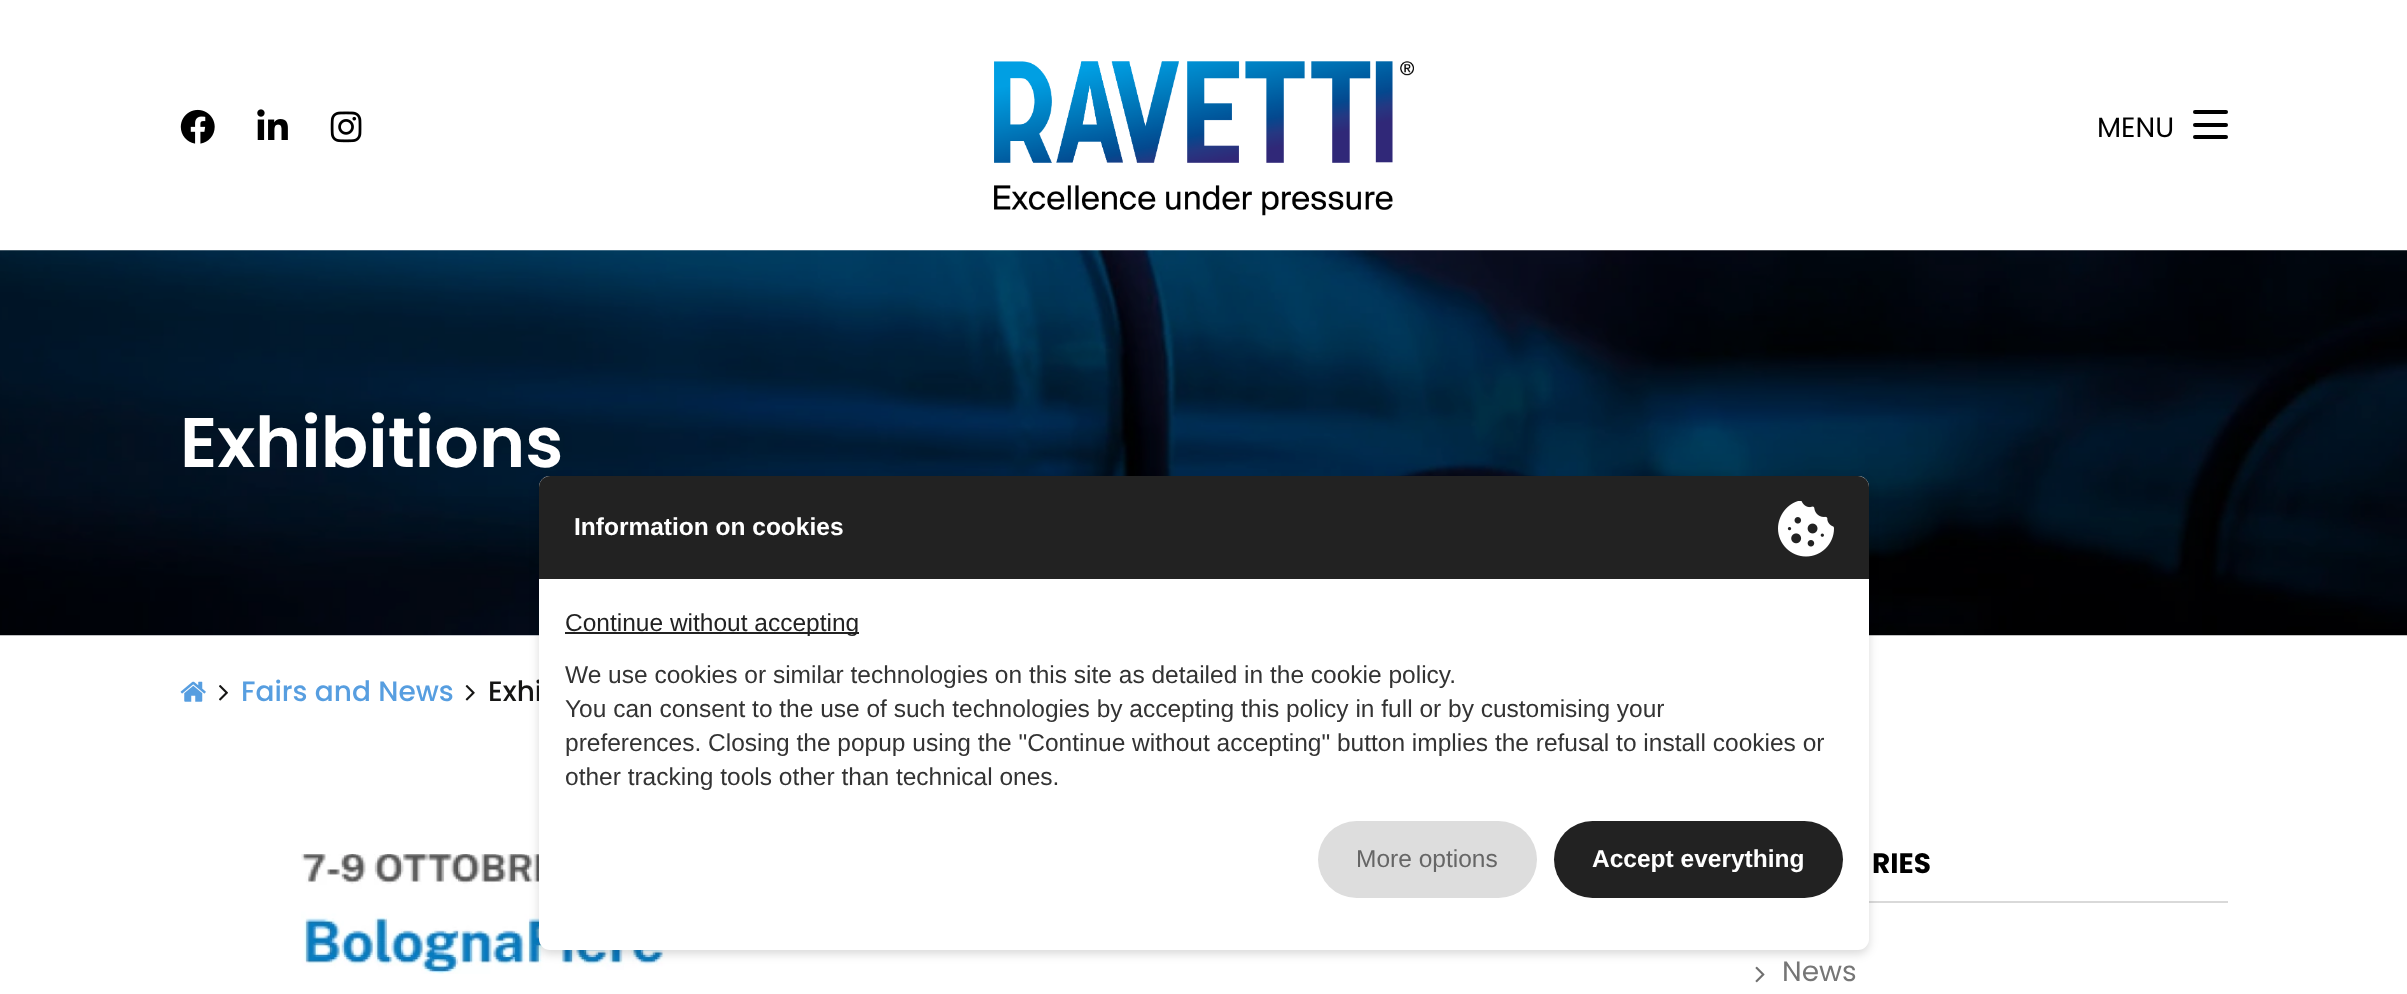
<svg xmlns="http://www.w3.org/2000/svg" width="2407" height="994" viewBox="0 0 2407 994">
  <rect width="100%" height="100%" fill="#fff"/>
  <image x="180" y="109" width="35" height="35" href="img/1.png"/>
  <image x="257" y="109" width="31" height="31" href="img/2.png"/>
  <image x="330" y="111" width="32" height="32" href="img/3.png"/>
  <image x="994" y="61" width="420" height="155" href="img/4.png"/>
  <rect x="2193" y="110" width="35" height="4" rx="2" fill="#000"/>
  <rect x="2193" y="123" width="35" height="4" rx="2" fill="#000"/>
  <rect x="2193" y="135" width="35" height="4" rx="2" fill="#000"/>
  <image x="0" y="250" width="2407" height="386" href="img/5.png"/>
  <image x="180" y="681" width="26" height="21" href="img/6.png"/>
  <image x="219" y="685" width="9" height="16" href="img/7.png"/>
  <image x="465" y="685" width="10" height="16" href="img/8.png"/>
  <image x="301" y="854" width="364" height="120" href="img/9.png"/>
  <path d="M1869 901h359v2H1869z" fill="#d9d9d9"/>
  <image x="1755" y="966" width="10" height="17" href="img/10.png"/>
  <rect x="539" y="480" width="1330" height="474" rx="11" fill="#00000026" filter="blur(5px)"/>
  <text x="2097" y="137" font-family="Poppins" font-size="28" fill="#000">MENU</text>
  <text x="180" y="467" font-family="Poppins" font-size="70" font-weight="600" fill="#fff">Exhibitions</text>
  <text x="241" y="701" font-family="Poppins" font-size="28" font-weight="500" fill="#579ee0">Fairs and News</text>
  <text x="488" y="701" font-family="Poppins" font-size="28" font-weight="500" fill="#161615">Exhi</text>
  <text x="1872" y="873" font-family="Poppins" font-size="28" font-weight="bold" fill="#000">RIES</text>
  <text x="1782" y="981" font-family="Poppins" font-size="28" fill="#767676">News</text>
  <rect x="539" y="476" width="1330" height="474" rx="11" fill="#fff"/>
  <path d="M550 476H1858C1864 476 1869 481 1869 487V579H539V487C539 481 544 476 550 476Z" fill="#222"/>
  <text x="574" y="535" font-family="Liberation Sans" font-size="24.5" font-weight="bold" fill="#fff">Information on cookies</text>
  <image x="1778" y="501" width="56" height="56" href="img/11.png"/>
  <path d="M565 632h294v2H565z" fill="#222"/>
  <text x="565" y="631" font-family="Liberation Sans" font-size="24.5" fill="#222">Continue without accepting</text>
  <g font-family="Liberation Sans" font-size="24.5" fill="#333">
    <text x="565" y="683">We use cookies or similar technologies on this site as detailed in the cookie policy.</text>
    <text x="565" y="717">You can consent to the use of such technologies by accepting this policy in full or by customising your</text>
    <text x="565" y="751">preferences. Closing the popup using the "Continue without accepting" button implies the refusal to install cookies or</text>
    <text x="565" y="785">other tracking tools other than technical ones.</text>
  </g>
  <rect x="1318" y="821" width="219" height="77" rx="38.5" fill="#ddd"/>
  <text x="1356" y="867" font-family="Liberation Sans" font-size="24.5" fill="#666">More options</text>
  <rect x="1554" y="821" width="289" height="77" rx="38.5" fill="#222"/>
  <text x="1592" y="867" font-family="Liberation Sans" font-size="24.5" font-weight="bold" fill="#fff">Accept everything</text>
</svg>
